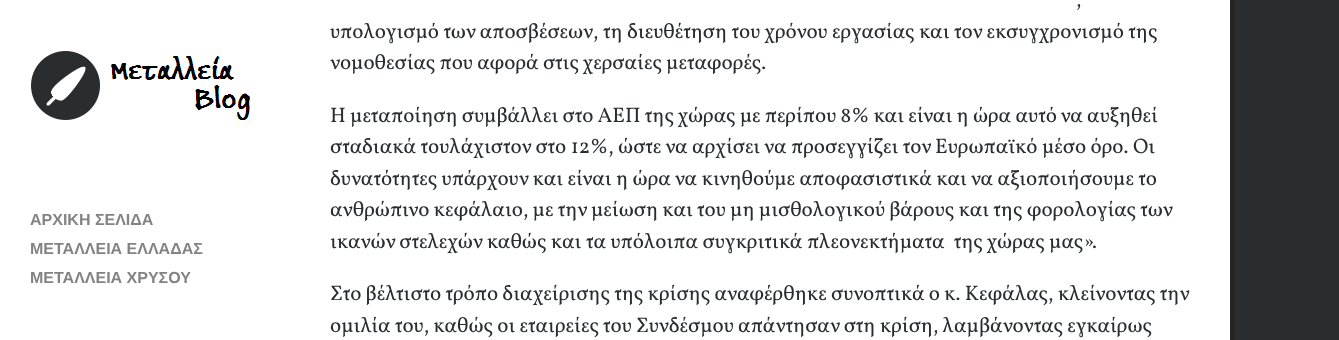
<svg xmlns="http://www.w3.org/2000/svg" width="1339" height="340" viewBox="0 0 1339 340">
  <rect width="100%" height="100%" fill="#2a2d30"/>
  <path d="M0 0h1230v340H0z" fill="#fff"/>
  <image x="31" y="51" width="220" height="69" href="img/1.png"/>
  <path d="M1230 0h5v340H1230z" fill="#222426"/>
  <g font-family="Liberation Sans" font-size="16" font-weight="bold" fill="#838383">
    <text x="30" y="225">ΑΡΧΙΚΗ ΣΕΛΙΔΑ</text>
    <text x="30" y="254">ΜΕΤΑΛΛΕΙΑ ΕΛΛΑΔΑΣ</text>
    <text x="30" y="283">ΜΕΤΑΛΛΕΙΑ ΧΡΥΣΟΥ</text>
  </g>
  <g font-family="Vollkorn" font-size="21" fill="#2a2d30">
    <text x="1076" y="6">,</text>
    <text x="330" y="38" word-spacing="0.25">υπολογισμό των αποσβέσεων, τη διευθέτηση του χρόνου εργασίας και τον εκσυγχρονισμό της</text>
    <text x="330" y="69">νομοθεσίας που αφορά στις χερσαίες μεταφορές.</text>
    <text x="330" y="122">Η μεταποίηση συμβάλλει στο ΑΕΠ της χώρας με περίπου 8% και είναι η ώρα αυτό να αυξηθεί</text>
    <text x="330" y="153" word-spacing="0.25">σταδιακά τουλάχιστον στο 12%, ώστε να αρχίσει να προσεγγίζει τον Ευρωπαϊκό μέσο όρο. Οι</text>
    <text x="330" y="185" word-spacing="0.2">δυνατότητες υπάρχουν και είναι η ώρα να κινηθούμε αποφασιστικά και να αξιοποιήσουμε το</text>
    <text x="330" y="216">ανθρώπινο κεφάλαιο, με την μείωση και του μη μισθολογικού βάρους και της φορολογίας των</text>
    <text x="330" y="248" word-spacing="0.25" xml:space="preserve">ικανών στελεχών καθώς και τα υπόλοιπα συγκριτικά πλεονεκτήματα  της χώρας μας».</text>
    <text x="330" y="300">Στο βέλτιστο τρόπο διαχείρισης της κρίσης αναφέρθηκε συνοπτικά ο κ. Κεφάλας, κλείνοντας την</text>
    <text x="330" y="332">ομιλία του, καθώς οι εταιρείες του Συνδέσμου απάντησαν στη κρίση, λαμβάνοντας εγκαίρως</text>
  </g>
</svg>
